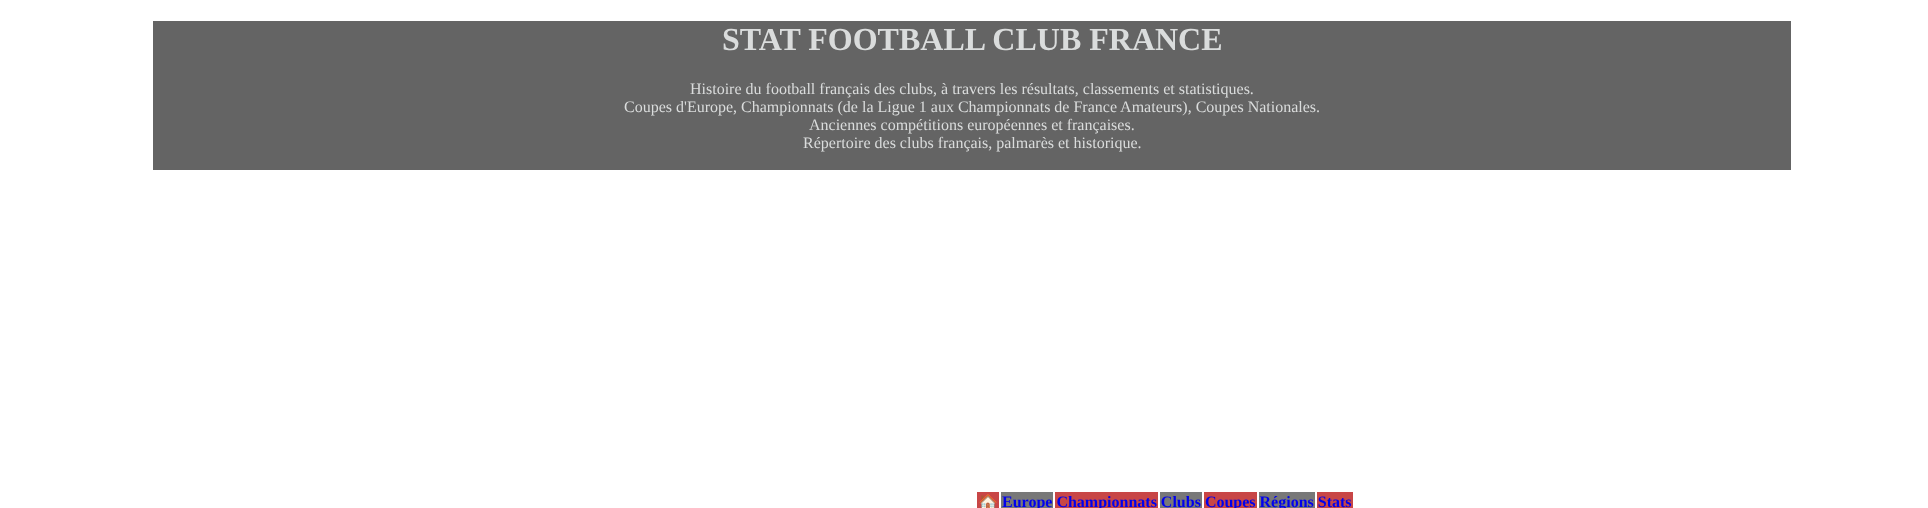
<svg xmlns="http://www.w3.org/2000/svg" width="1928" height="508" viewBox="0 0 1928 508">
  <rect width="100%" height="100%" fill="#fff"/>
  <path d="M153 21h1638v149H153z" fill="#646464"/>
  <path d="M977 492h22v16H977z" fill="#c84646"/>
  <path d="M1055 492h103v16H1055z" fill="#c84646"/>
  <path d="M1160 492h42v16H1160z" fill="#787878"/>
  <path d="M1204 492h53v16H1204z" fill="#c84646"/>
  <path d="M1259 492h56v16H1259z" fill="#787878"/>
  <path d="M1317 492h36v16H1317z" fill="#c84646"/>
  <path d="M1001 492h52v16H1001z" fill="#787878"/>
  <text x="722" y="50" font-family="Liberation Serif" font-size="32" font-weight="bold" fill="#dadcdc">STAT FOOTBALL CLUB FRANCE</text>
  <g font-family="Liberation Serif" font-size="16" fill="#dadcdc">
    <text x="690" y="94">Histoire du football français des clubs, à travers les résultats, classements et statistiques.</text>
    <text x="624" y="112">Coupes d'Europe, Championnats (de la Ligue 1 aux Championnats de France Amateurs), Coupes Nationales.</text>
    <text x="809" y="130">Anciennes compétitions européennes et françaises.</text>
    <text x="803" y="148">Répertoire des clubs français, palmarès et historique.</text>
  </g>
  <text x="978" y="508" font-family="Noto Color Emoji" font-size="16" font-weight="bold" fill="#00e">🏠</text>
  <text x="1002" y="507" font-family="Liberation Serif" font-size="16" font-weight="bold" fill="#00e">Europe Championnats Clubs Coupes Régions Stats</text>
</svg>
